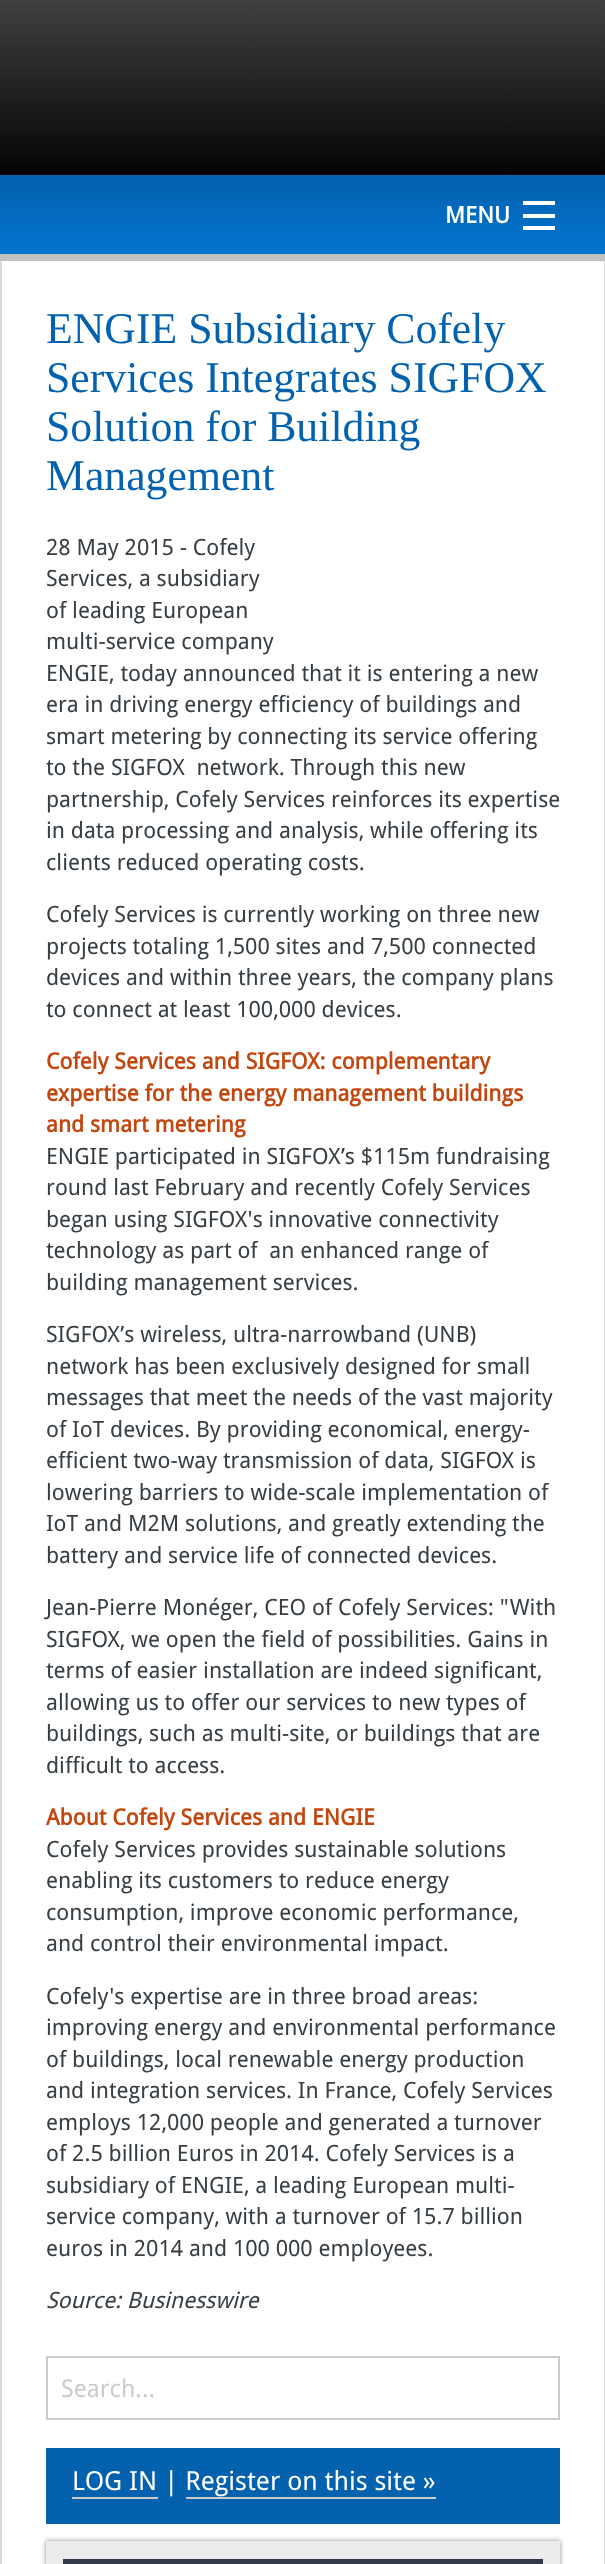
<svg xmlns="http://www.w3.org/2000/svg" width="605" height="2564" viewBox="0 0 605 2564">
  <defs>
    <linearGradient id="g1" gradientUnits="userSpaceOnUse" x1="0" y1="0" x2="0" y2="175"><stop offset="0" stop-color="#404040"/><stop offset="1" stop-color="#040404"/></linearGradient>
    <linearGradient id="g2" gradientUnits="userSpaceOnUse" x1="0" y1="175" x2="0" y2="254"><stop offset="0" stop-color="#0361ae"/><stop offset="1" stop-color="#0374cf"/></linearGradient>
    <linearGradient id="g3" gradientUnits="userSpaceOnUse" x1="46" y1="2541" x2="46" y2="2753"><stop offset="0" stop-color="#ebebeb"/><stop offset="1" stop-color="#f8f8f8"/></linearGradient>
  </defs>
  <rect width="100%" height="100%" fill="#fff"/>
  <path d="M0 0h605v175H0z" fill="url(#g1)"/>
  <path d="M0 175h605v79H0z" fill="url(#g2)"/>
  <path d="M523 226h32v4H523z" fill="#fff"/>
  <path d="M523 214h32v4H523z" fill="#fff"/>
  <path d="M523 201h32v4H523z" fill="#fff"/>
  <path d="M0 254h605v7H0z" fill="#c1c1c1"/>
  <path d="M604 261h1v2303H604z" fill="#dadada"/>
  <path d="M0 261h2v2303H0z" fill="#dadada"/>
  <path d="M47 2357h512v62H47z" fill="none" stroke="#ccc" stroke-width="2"/>
  <path d="M46 2448h514v76H46z" fill="#0361ae"/>
  <path d="M72 2497h86v2H72z" fill="#ccc"/>
  <path d="M186 2497h250v2H186z" fill="#ccc"/>
  <path d="M46 2541h514v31H46z" fill="#00000073" filter="blur(2.5px)"/>
  <path d="M46 2541h514v23H46z" fill="url(#g3)"/>
  <path d="M63 2559h480v5H63z" fill="#323a49"/>
  <text x="445" y="223" font-family="Droid Sans" font-size="23" font-weight="bold" fill="#fff">MENU</text>
  <g font-family="Liberation Serif" font-size="43.75" fill="#0361ae">
    <text x="46" y="343">ENGIE Subsidiary Cofely</text>
    <text x="46" y="392">Services Integrates SIGFOX</text>
    <text x="46" y="441">Solution for Building</text>
    <text x="46" y="490">Management</text>
  </g>
  <g font-family="Droid Sans" font-size="22.4" fill="#383f44">
    <text x="46" y="555">28 May 2015 - Cofely</text>
    <text x="46" y="586">Services, a subsidiary</text>
    <text x="46" y="618">of leading European</text>
    <text x="46" y="649">multi-service company</text>
    <text x="46" y="681">ENGIE, today announced that it is entering a new</text>
    <text x="46" y="712">era in driving energy efficiency of buildings and</text>
    <text x="46" y="744">smart metering by connecting its service offering</text>
    <text x="46" y="775" xml:space="preserve">to the SIGFOX  network. Through this new</text>
    <text x="46" y="807">partnership, Cofely Services reinforces its expertise</text>
    <text x="46" y="838">in data processing and analysis, while offering its</text>
    <text x="46" y="870">clients reduced operating costs.</text>
    <text x="46" y="922">Cofely Services is currently working on three new</text>
    <text x="46" y="954">projects totaling 1,500 sites and 7,500 connected</text>
    <text x="46" y="985">devices and within three years, the company plans</text>
    <text x="46" y="1017">to connect at least 100,000 devices.</text>
  </g>
  <g font-family="Droid Sans" font-size="22.4" font-weight="bold" fill="#c2470f">
    <text x="46" y="1069">Cofely Services and SIGFOX: complementary</text>
    <text x="46" y="1101">expertise for the energy management buildings</text>
    <text x="46" y="1132">and smart metering</text>
  </g>
  <g font-family="Droid Sans" font-size="22.4" fill="#383f44">
    <text x="46" y="1164">ENGIE participated in SIGFOX’s $115m fundraising</text>
    <text x="46" y="1195">round last February and recently Cofely Services</text>
    <text x="46" y="1227">began using SIGFOX's innovative connectivity</text>
    <text x="46" y="1258" xml:space="preserve">technology as part of  an enhanced range of</text>
    <text x="46" y="1290">building management services.</text>
    <text x="46" y="1342">SIGFOX’s wireless, ultra-narrowband (UNB)</text>
    <text x="46" y="1374">network has been exclusively designed for small</text>
    <text x="46" y="1405">messages that meet the needs of the vast majority</text>
    <text x="46" y="1437">of IoT devices. By providing economical, energy-</text>
    <text x="46" y="1468">efficient two-way transmission of data, SIGFOX is</text>
    <text x="46" y="1500">lowering barriers to wide-scale implementation of</text>
    <text x="46" y="1531">IoT and M2M solutions, and greatly extending the</text>
    <text x="46" y="1563">battery and service life of connected devices.</text>
    <text x="46" y="1615">Jean-Pierre Monéger, CEO of Cofely Services: "With</text>
    <text x="46" y="1647">SIGFOX, we open the field of possibilities. Gains in</text>
    <text x="46" y="1678">terms of easier installation are indeed significant,</text>
    <text x="46" y="1710">allowing us to offer our services to new types of</text>
    <text x="46" y="1741">buildings, such as multi-site, or buildings that are</text>
    <text x="46" y="1773">difficult to access.</text>
  </g>
  <text x="46" y="1825" font-family="Droid Sans" font-size="22.4" font-weight="bold" fill="#c2470f">About Cofely Services and ENGIE</text>
  <g font-family="Droid Sans" font-size="22.4" fill="#383f44">
    <text x="46" y="1857">Cofely Services provides sustainable solutions</text>
    <text x="46" y="1888">enabling its customers to reduce energy</text>
    <text x="46" y="1920">consumption, improve economic performance,</text>
    <text x="46" y="1951">and control their environmental impact.</text>
    <text x="46" y="2004">Cofely's expertise are in three broad areas:</text>
    <text x="46" y="2035">improving energy and environmental performance</text>
    <text x="46" y="2067">of buildings, local renewable energy production</text>
    <text x="46" y="2098">and integration services. In France, Cofely Services</text>
    <text x="46" y="2130">employs 12,000 people and generated a turnover</text>
    <text x="46" y="2161">of 2.5 billion Euros in 2014. Cofely Services is a</text>
    <text x="46" y="2193">subsidiary of ENGIE, a leading European multi-</text>
    <text x="46" y="2224">service company, with a turnover of 15.7 billion</text>
    <text x="46" y="2256">euros in 2014 and 100 000 employees.</text>
  </g>
  <text x="46" y="2308" font-family="Droid Sans" font-size="22.4" font-style="italic" fill="#383f44">Source: Businesswire</text>
  <text x="61" y="2397" font-family="Droid Sans" font-size="24.5" fill="#ccc">Search...</text>
  <text x="72" y="2490" font-family="Droid Sans" font-size="26.25" fill="#fff">LOG IN | Register on this site »</text>
</svg>
